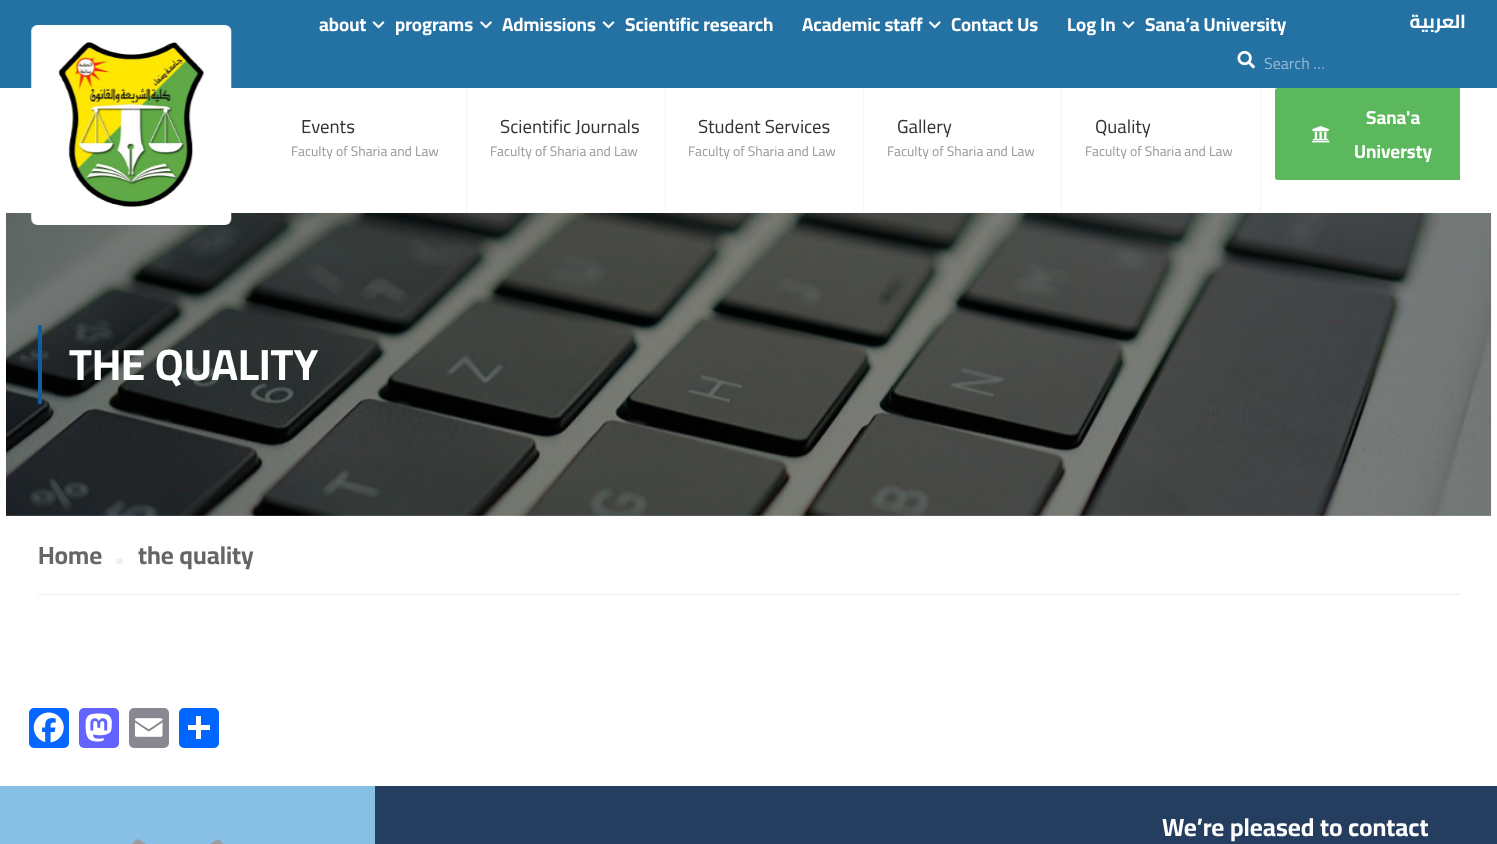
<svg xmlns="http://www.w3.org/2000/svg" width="1497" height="844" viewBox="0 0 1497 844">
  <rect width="100%" height="100%" fill="#fff"/>
  <path d="M0 0h1497v88H0z" fill="#2471a4"/>
  <image x="372" y="21" width="13" height="8" href="img/1.png"/>
  <image x="480" y="21" width="12" height="8" href="img/2.png"/>
  <image x="602" y="21" width="13" height="8" href="img/1.png"/>
  <image x="929" y="21" width="12" height="8" href="img/3.png"/>
  <image x="1122" y="21" width="13" height="8" href="img/1.png"/>
  <image x="1237" y="50" width="18" height="19" href="img/4.png"/>
  <image x="6" y="213" width="1486" height="303" href="img/7.png"/>
  <image x="31" y="25" width="201" height="200" href="img/5.png"/>
  <path d="M466 88h1v125H466z" fill="#f5f5f5"/>
  <path d="M665 88h1v125H665z" fill="#f5f5f5"/>
  <path d="M863 88h1v125H863z" fill="#f5f5f5"/>
  <path d="M1061 88h1v125H1061z" fill="#f5f5f5"/>
  <path d="M1260 88h1v125H1260z" fill="#f5f5f5"/>
  <path d="M1277.5 88H1460V180H1277.5C1276 180 1275 179 1275 177.5V90.5C1275 89 1276 88 1277.5 88Z" fill="#5cb85c"/>
  <image x="1311" y="126" width="19" height="17" href="img/6.png"/>
  <path d="M38 325h4v79H38z" fill="#125d9f"/>
  <path d="M38 594h1422v1H38z" fill="#eee"/>
  <rect x="116" y="558" width="7" height="6" rx="3" fill="#eee"/>
  <rect x="29" y="708" width="40" height="40" rx="5" fill="#0866ff"/>
  <image x="33" y="712" width="31" height="31" href="img/8.png"/>
  <rect x="79" y="708" width="40" height="40" rx="5" fill="#6364ff"/>
  <image x="85" y="713" width="27" height="29" href="img/9.png"/>
  <rect x="129" y="708" width="40" height="40" rx="5" fill="#888990"/>
  <image x="135" y="718" width="28" height="19" href="img/10.png"/>
  <rect x="179" y="708" width="40" height="40" rx="5" fill="#0166ff"/>
  <path d="M196 716h5v23H196z" fill="#fff"/>
  <path d="M188 725h22v5H188z" fill="#fff"/>
  <path d="M375 786h1122v58H375z" fill="#253d5f"/>
  <path d="M0 786h375v58H0z" fill="#88bfe5"/>
  <image x="131" y="839" width="93" height="5" href="img/11.png"/>
  <g font-family="Cairo" font-size="18.75" font-weight="bold" fill="#fff">
    <text x="319" y="31">about</text>
    <text x="395" y="31">programs</text>
    <text x="502" y="31">Admissions</text>
    <text x="625" y="31">Scientific research</text>
    <text x="802" y="31">Academic staff</text>
    <text x="951" y="31">Contact Us</text>
    <text x="1067" y="31">Log In</text>
    <text x="1145" y="31">Sana’a University</text>
  </g>
  <text x="1466" y="28" font-family="Cairo" font-size="18.75" font-weight="bold" direction="rtl" fill="#fff">العربية</text>
  <text x="1264" y="69" font-family="Cairo" font-size="16" fill="#92b8d2">Search …</text>
  <text x="301" y="133" font-family="Cairo" font-size="18.75" fill="#333">Events</text>
  <text x="291" y="156" font-family="Cairo" font-size="13.75" fill="#999">Faculty of Sharia and Law</text>
  <text x="500" y="133" font-family="Cairo" font-size="18.75" fill="#333">Scientific Journals</text>
  <text x="490" y="156" font-family="Cairo" font-size="13.75" fill="#999">Faculty of Sharia and Law</text>
  <text x="698" y="133" font-family="Cairo" font-size="18.75" fill="#333">Student Services</text>
  <text x="688" y="156" font-family="Cairo" font-size="13.75" fill="#999">Faculty of Sharia and Law</text>
  <text x="897" y="133" font-family="Cairo" font-size="18.75" fill="#333">Gallery</text>
  <text x="887" y="156" font-family="Cairo" font-size="13.75" fill="#999">Faculty of Sharia and Law</text>
  <text x="1095" y="133" font-family="Cairo" font-size="18.75" fill="#333">Quality</text>
  <text x="1085" y="156" font-family="Cairo" font-size="13.75" fill="#999">Faculty of Sharia and Law</text>
  <g font-family="Cairo" font-size="18.75" font-weight="bold" fill="#fff">
    <text x="1366" y="124">Sana'a</text>
    <text x="1354" y="158">Universty</text>
  </g>
  <text x="69" y="380" font-family="Cairo" font-size="43.75" font-weight="bold" fill="#fff">THE QUALITY</text>
  <g font-family="Cairo" font-size="25" font-weight="bold" fill="#666">
    <text x="38" y="564">Home</text>
    <text x="138" y="564">the quality</text>
  </g>
  <text x="1162" y="836" font-family="Cairo" font-size="25" font-weight="bold" fill="#fff">We’re pleased to contact</text>
</svg>
